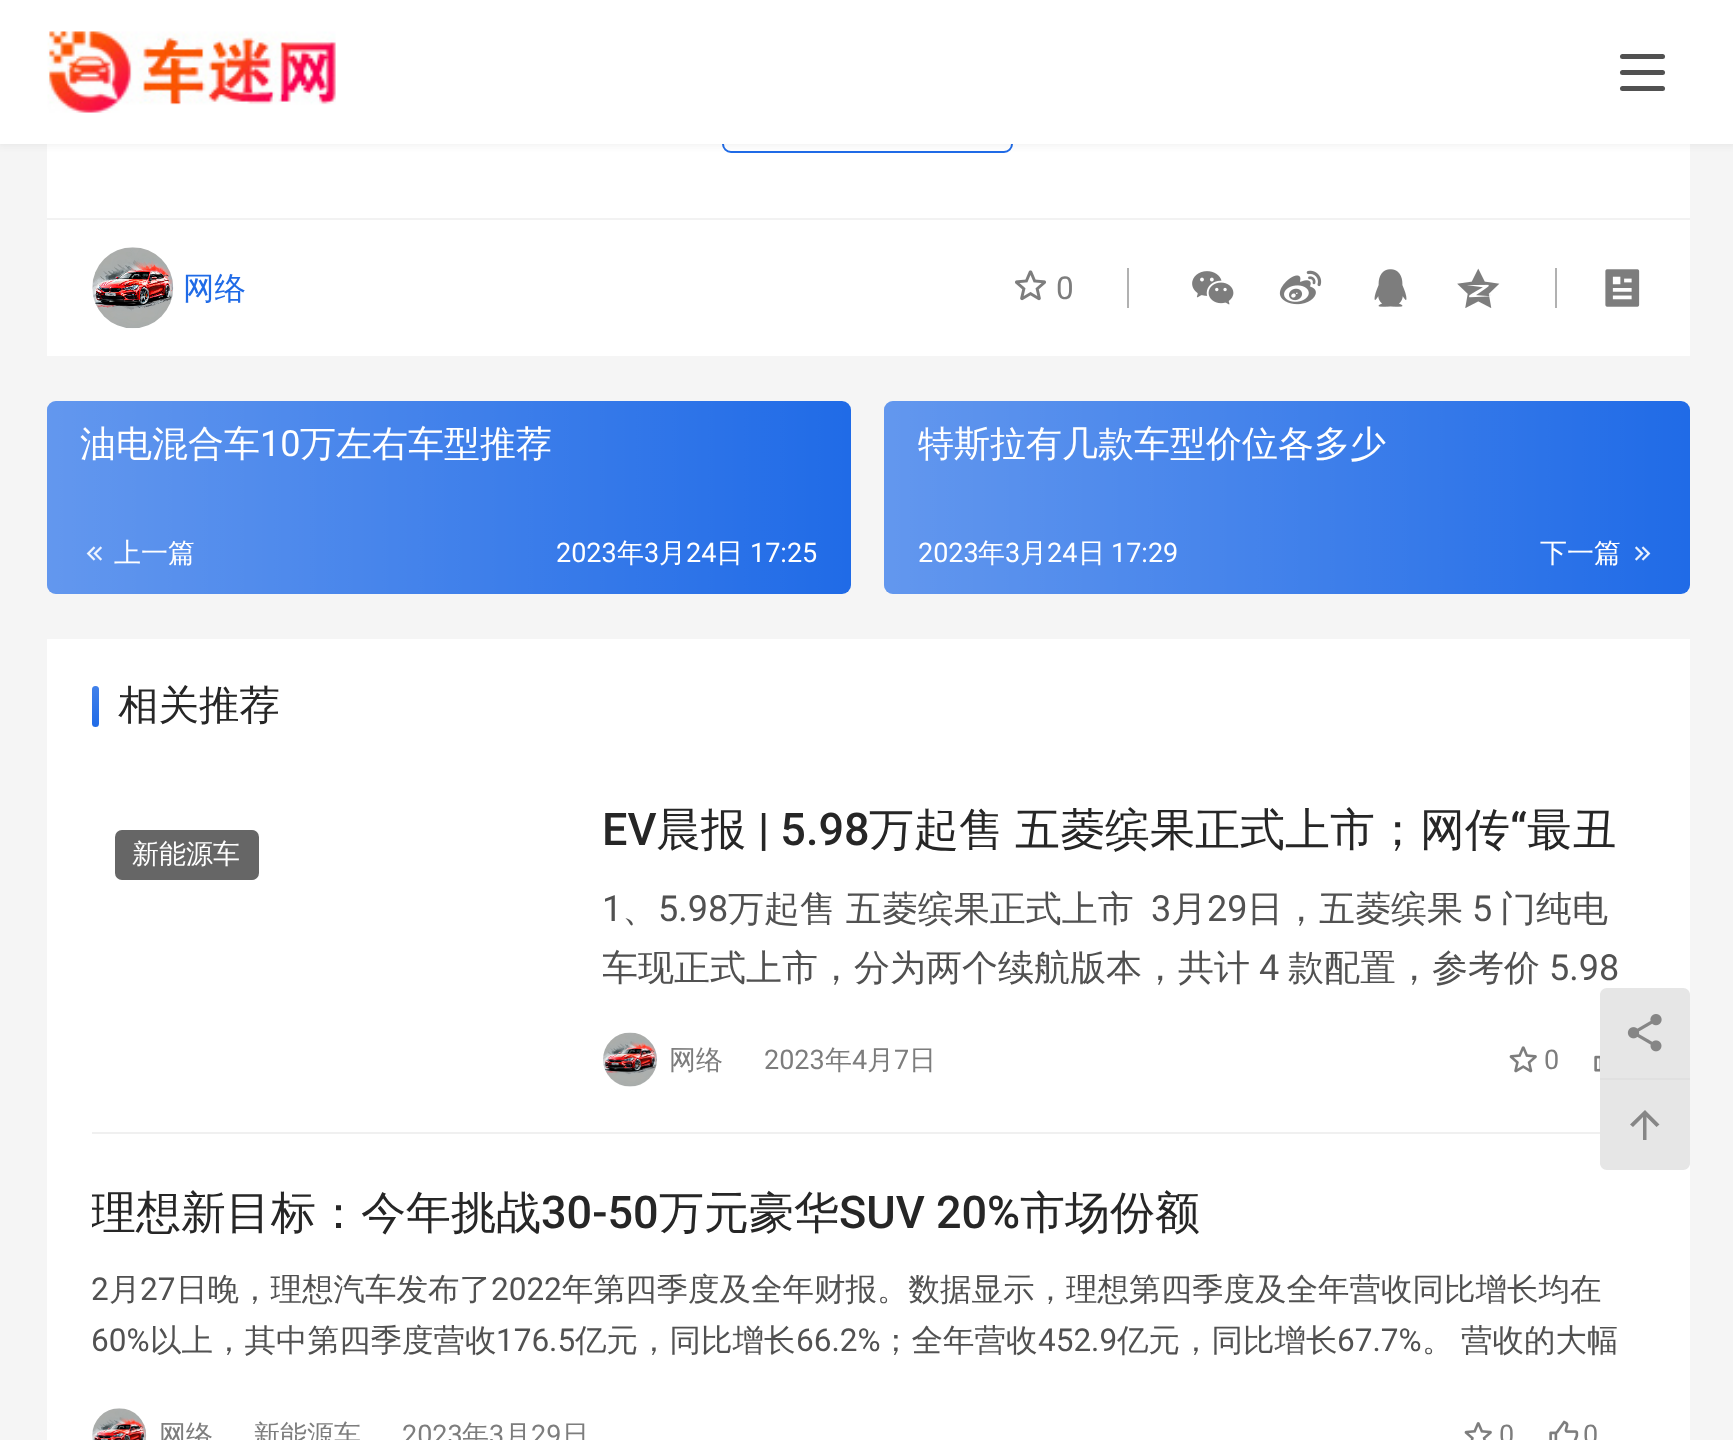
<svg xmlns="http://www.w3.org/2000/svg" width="1733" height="1440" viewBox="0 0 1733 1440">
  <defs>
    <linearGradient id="g1" gradientUnits="userSpaceOnUse" x1="47" y1="497" x2="851" y2="497"><stop offset="0" stop-color="#fff" stop-opacity="0.3"/><stop offset="1" stop-color="#fff" stop-opacity="0"/></linearGradient>
    <linearGradient id="g2" gradientUnits="userSpaceOnUse" x1="884" y1="497" x2="1690" y2="497"><stop offset="0" stop-color="#fff" stop-opacity="0.3"/><stop offset="1" stop-color="#fff" stop-opacity="0"/></linearGradient>
    <linearGradient id="g3" gradientUnits="userSpaceOnUse" x1="96" y1="686" x2="96" y2="727"><stop offset="0" stop-color="#fff" stop-opacity="0.15"/><stop offset="1" stop-color="#fff" stop-opacity="0"/></linearGradient>
    <clipPath id="clip1"><path d="M603 882h1042v117H603z"/></clipPath>
    <clipPath id="clip2"><path d="M92 1179h1553v63H92z"/></clipPath>
  </defs>
  <rect width="100%" height="100%" fill="#f5f5f5"/>
  <path d="M47 144h1643v212H47z" fill="#fff"/>
  <rect x="723" y="64" width="289" height="88" rx="8" fill="none" stroke="#206be7" stroke-width="2"/>
  <path d="M-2 -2h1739v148H-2z" fill="#2626260f" filter="blur(3.5px)"/>
  <path d="M0 0h1733v144H0z" fill="#fff"/>
  <image x="47" y="31" width="289" height="82" href="img/1.png"/>
  <rect x="1620" y="54" width="45" height="5" rx="2.5" fill="#515151"/>
  <rect x="1620" y="70" width="45" height="5" rx="2.5" fill="#515151"/>
  <rect x="1620" y="86" width="45" height="5" rx="2.5" fill="#515151"/>
  <path d="M47 218V353V220H1690V353V218Z" fill="#f2f2f2"/>
  <image x="92" y="247" width="82" height="82" href="img/2.png"/>
  <image x="1015" y="270" width="31" height="31" href="img/3.png"/>
  <path d="M1127 268h2v40H1127z" fill="#b1b1b1"/>
  <image x="1192" y="271" width="42" height="34" href="img/4.png"/>
  <image x="1279" y="270" width="43" height="35" href="img/5.png"/>
  <image x="1374" y="269" width="33" height="38" href="img/6.png"/>
  <image x="1457" y="268" width="43" height="40" href="img/7.png"/>
  <path d="M1555 268h2v40H1555z" fill="#b1b1b1"/>
  <image x="1605" y="269" width="35" height="38" href="img/8.png"/>
  <rect x="47" y="401" width="804" height="193" rx="9" fill="#206be7"/>
  <rect x="47" y="401" width="804" height="193" rx="9" fill="url(#g1)"/>
  <image x="86" y="546" width="16" height="15" href="img/9.png"/>
  <rect x="884" y="401" width="806" height="193" rx="9" fill="#206be7"/>
  <rect x="884" y="401" width="806" height="193" rx="9" fill="url(#g2)"/>
  <image x="1635" y="546" width="16" height="15" href="img/10.png"/>
  <path d="M47 639h1643v801H47z" fill="#fff"/>
  <rect x="92" y="686" width="7" height="41" rx="3.5" fill="#206be7"/>
  <rect x="92" y="686" width="7" height="41" rx="3.5" fill="url(#g3)"/>
  <path d="M92 1132h1508v2H92z" fill="#f0f0f0"/>
  <rect x="115" y="830" width="144" height="50" rx="7" fill="#666"/>
  <circle cx="630" cy="1060" r="27" fill="#f5f5f5"/>
  <image x="603" y="1032" width="54" height="55" href="img/11.png"/>
  <image x="1509" y="1046" width="28" height="27" href="img/12.png"/>
  <image x="1594" y="1055" width="6" height="17" href="img/13.png"/>
  <circle cx="119" cy="1436" r="27" fill="#f5f5f5"/>
  <image x="92" y="1408" width="55" height="32" href="img/14.png"/>
  <image x="1464" y="1422" width="28" height="18" href="img/15.png"/>
  <image x="1549" y="1420" width="30" height="20" href="img/16.png"/>
  <path d="M1607 988H1683C1687 988 1690 991 1690 995V1078H1600V995C1600 991 1603 988 1607 988Z" fill="#f5f5f5"/>
  <path d="M1607 988H1683C1687 988 1690 991 1690 995V1078H1600V995C1600 991 1603 988 1607 988Z" fill="#26262612"/>
  <image x="1627" y="1014" width="35" height="38" href="img/17.png"/>
  <path d="M1600 1078H1690V1163C1690 1167 1687 1170 1683 1170H1607C1603 1170 1600 1167 1600 1163Z" fill="#f5f5f5"/>
  <path d="M1600 1078h90v2H1600z" fill="#e0e0e0"/>
  <path d="M1600 1080H1690V1163C1690 1167 1687 1170 1683 1170H1607C1603 1170 1600 1167 1600 1163Z" fill="#26262612"/>
  <path d="M1646.5 1117V1140H1643V1117L1633 1127L1630 1124.5L1645 1110L1659.5 1124.5L1656.5 1127Z" fill="#868686"/>
  <text x="183" y="299" font-family="WenQuanYi Zen Hei" font-size="31.5" font-weight="500" fill="#206be7">网络</text>
  <text x="1056" y="299" font-family="Roboto" font-size="31.5" fill="#7d7d7d">0</text>
  <text x="80" y="456" font-family="WenQuanYi Zen Hei" font-size="36" font-weight="500" fill="#fff">油电混合车</text>
  <text x="260" y="456" font-family="Roboto" font-size="36" fill="#fff">10</text>
  <text x="300" y="456" font-family="WenQuanYi Zen Hei" font-size="36" font-weight="500" fill="#fff">万左右车型推荐</text>
  <text x="114" y="562" font-family="WenQuanYi Zen Hei" font-size="27" font-weight="500" fill="#fff">上一篇</text>
  <text x="556" y="562" font-family="Roboto" font-size="27" fill="#fff">2023</text>
  <text x="617" y="562" font-family="WenQuanYi Zen Hei" font-size="27" font-weight="500" fill="#fff">年</text>
  <text x="644" y="562" font-family="Roboto" font-size="27" fill="#fff">3</text>
  <text x="659" y="562" font-family="WenQuanYi Zen Hei" font-size="27" font-weight="500" fill="#fff">月</text>
  <text x="686" y="562" font-family="Roboto" font-size="27" fill="#fff">24</text>
  <text x="716" y="562" font-family="WenQuanYi Zen Hei" font-size="27" font-weight="500" fill="#fff">日</text>
  <text x="750" y="562" font-family="Roboto" font-size="27" fill="#fff">17:25</text>
  <text x="918" y="456" font-family="WenQuanYi Zen Hei" font-size="36" font-weight="500" fill="#fff">特斯拉有几款车型价位各多少</text>
  <text x="918" y="562" font-family="Roboto" font-size="27" fill="#fff">2023</text>
  <text x="978" y="562" font-family="WenQuanYi Zen Hei" font-size="27" font-weight="500" fill="#fff">年</text>
  <text x="1005" y="562" font-family="Roboto" font-size="27" fill="#fff">3</text>
  <text x="1020" y="562" font-family="WenQuanYi Zen Hei" font-size="27" font-weight="500" fill="#fff">月</text>
  <text x="1047" y="562" font-family="Roboto" font-size="27" fill="#fff">24</text>
  <text x="1078" y="562" font-family="WenQuanYi Zen Hei" font-size="27" font-weight="500" fill="#fff">日</text>
  <text x="1111" y="562" font-family="Roboto" font-size="27" fill="#fff">17:29</text>
  <text x="1540" y="562" font-family="WenQuanYi Zen Hei" font-size="27" font-weight="500" fill="#fff">下一篇</text>
  <text x="118" y="719" font-family="WenQuanYi Zen Hei" font-size="40.5" font-weight="500" fill="#262626">相关推荐</text>
  <text x="132" y="863" font-family="WenQuanYi Zen Hei" font-size="27" font-weight="500" fill="#fff">新能源车</text>
  <text x="602" y="845" font-family="Roboto" font-size="45" font-weight="500" fill="#262626">EV</text>
  <text x="656" y="845" font-family="WenQuanYi Zen Hei" font-size="45" font-weight="500" fill="#262626">晨报</text>
  <text x="758" y="845" font-family="Roboto" font-size="45" font-weight="500" fill="#262626">| 5.98</text>
  <g font-family="WenQuanYi Zen Hei" font-size="45" font-weight="500" fill="#262626">
    <text x="869" y="845">万起售</text>
    <text x="1015" y="845">五菱缤果正式上市；网传</text>
  </g>
  <text x="1510" y="845" font-family="Roboto" font-size="45" font-weight="500" fill="#262626">“</text>
  <text x="1527" y="845" font-family="WenQuanYi Zen Hei" font-size="45" font-weight="500" fill="#262626">最丑</text>
  <text x="602" y="921" font-family="Roboto" font-size="36" fill="#515151">1</text>
  <text x="622" y="921" font-family="WenQuanYi Zen Hei" font-size="36" font-weight="500" fill="#515151">、</text>
  <text x="658" y="921" font-family="Roboto" font-size="36" fill="#515151">5.98</text>
  <text x="728" y="921" word-spacing="-1" font-family="WenQuanYi Zen Hei" font-size="36" font-weight="500" fill="#515151">万起售 五菱缤果正式上市</text>
  <text x="1151" y="921" font-family="Roboto" font-size="36" fill="#515151">3</text>
  <text x="1171" y="921" font-family="WenQuanYi Zen Hei" font-size="36" font-weight="500" fill="#515151">月</text>
  <text x="1207" y="921" font-family="Roboto" font-size="36" fill="#515151">29</text>
  <text x="1247" y="921" font-family="WenQuanYi Zen Hei" font-size="36" font-weight="500" fill="#515151">日，五菱缤果</text>
  <text x="1472" y="921" font-family="Roboto" font-size="36" fill="#515151">5</text>
  <text x="1500" y="921" font-family="WenQuanYi Zen Hei" font-size="36" font-weight="500" fill="#515151">门纯电</text>
  <g clip-path="url(#clip1)">
    <text x="602" y="980" font-family="WenQuanYi Zen Hei" font-size="36" font-weight="500" fill="#515151">车现正式上市，分为两个续航版本，共计</text>
  </g>
  <text x="1259" y="980" font-family="Roboto" font-size="36" fill="#515151">4</text>
  <text x="1288" y="980" font-family="WenQuanYi Zen Hei" font-size="36" font-weight="500" fill="#515151">款配置，参考价</text>
  <text x="1549" y="980" font-family="Roboto" font-size="36" fill="#515151">5.98</text>
  <text x="669" y="1069" font-family="WenQuanYi Zen Hei" font-size="27" font-weight="500" fill="#7d7d7d">网络</text>
  <text x="764" y="1069" font-family="Roboto" font-size="27" fill="#7d7d7d">2023</text>
  <text x="825" y="1069" font-family="WenQuanYi Zen Hei" font-size="27" font-weight="500" fill="#7d7d7d">年</text>
  <text x="852" y="1069" font-family="Roboto" font-size="27" fill="#7d7d7d">4</text>
  <text x="867" y="1069" font-family="WenQuanYi Zen Hei" font-size="27" font-weight="500" fill="#7d7d7d">月</text>
  <text x="894" y="1069" font-family="Roboto" font-size="27" fill="#7d7d7d">7</text>
  <text x="909" y="1069" font-family="WenQuanYi Zen Hei" font-size="27" font-weight="500" fill="#7d7d7d">日</text>
  <text x="1544" y="1069" font-family="Roboto" font-size="27" fill="#7d7d7d">0</text>
  <g clip-path="url(#clip2)">
    <text x="91" y="1228" font-family="WenQuanYi Zen Hei" font-size="45" font-weight="500" fill="#262626">理想新目标：今年挑战</text>
  </g>
  <text x="541" y="1228" font-family="Roboto" font-size="45" font-weight="500" fill="#262626">30-50</text>
  <text x="659" y="1228" font-family="WenQuanYi Zen Hei" font-size="45" font-weight="500" fill="#262626">万元豪华</text>
  <text x="839" y="1228" font-family="Roboto" font-size="45" font-weight="500" fill="#262626">SUV 20%</text>
  <text x="1020" y="1228" font-family="WenQuanYi Zen Hei" font-size="45" font-weight="500" fill="#262626">市场份额</text>
  <text x="91" y="1300" font-family="Roboto" font-size="31.5" fill="#515151">2</text>
  <text x="109" y="1300" font-family="WenQuanYi Zen Hei" font-size="31.5" font-weight="500" fill="#515151">月</text>
  <text x="140" y="1300" font-family="Roboto" font-size="31.5" fill="#515151">27</text>
  <text x="176" y="1300" font-family="WenQuanYi Zen Hei" font-size="31.5" font-weight="500" fill="#515151">日晚，理想汽车发布了</text>
  <text x="491" y="1300" font-family="Roboto" font-size="31.5" fill="#515151">2022</text>
  <text x="562" y="1300" font-family="WenQuanYi Zen Hei" font-size="31.5" font-weight="500" fill="#515151">年第四季度及全年财报。数据显示，理想第四季度及全年营收同比增长均在</text>
  <text x="91" y="1351" font-family="Roboto" font-size="31.5" fill="#515151">60%</text>
  <text x="150" y="1351" font-family="WenQuanYi Zen Hei" font-size="31.5" font-weight="500" fill="#515151">以上，其中第四季度营收</text>
  <text x="496" y="1351" font-family="Roboto" font-size="31.5" fill="#515151">176.5</text>
  <text x="575" y="1351" font-family="WenQuanYi Zen Hei" font-size="31.5" font-weight="500" fill="#515151">亿元，同比增长</text>
  <text x="796" y="1351" font-family="Roboto" font-size="31.5" fill="#515151">66.2%</text>
  <text x="880" y="1351" font-family="WenQuanYi Zen Hei" font-size="31.5" font-weight="500" fill="#515151">；全年营收</text>
  <text x="1038" y="1351" font-family="Roboto" font-size="31.5" fill="#515151">452.9</text>
  <text x="1117" y="1351" font-family="WenQuanYi Zen Hei" font-size="31.5" font-weight="500" fill="#515151">亿元，同比增长</text>
  <text x="1337" y="1351" font-family="Roboto" font-size="31.5" fill="#515151">67.7%</text>
  <text x="1422" y="1351" word-spacing="-2" font-family="WenQuanYi Zen Hei" font-size="31.5" font-weight="500" fill="#515151">。 营收的大幅</text>
  <g font-family="WenQuanYi Zen Hei" font-size="27" font-weight="500" fill="#7d7d7d">
    <text x="159" y="1444">网络</text>
    <text x="253" y="1444">新能源车</text>
  </g>
  <text x="402" y="1444" font-family="Roboto" font-size="27" fill="#7d7d7d">2023</text>
  <text x="462" y="1444" font-family="WenQuanYi Zen Hei" font-size="27" font-weight="500" fill="#7d7d7d">年</text>
  <text x="489" y="1444" font-family="Roboto" font-size="27" fill="#7d7d7d">3</text>
  <text x="504" y="1444" font-family="WenQuanYi Zen Hei" font-size="27" font-weight="500" fill="#7d7d7d">月</text>
  <text x="531" y="1444" font-family="Roboto" font-size="27" fill="#7d7d7d">29</text>
  <text x="562" y="1444" font-family="WenQuanYi Zen Hei" font-size="27" font-weight="500" fill="#7d7d7d">日</text>
  <g font-family="Roboto" font-size="27" fill="#7d7d7d">
    <text x="1499" y="1444">0</text>
    <text x="1583" y="1444">0</text>
  </g>
</svg>
